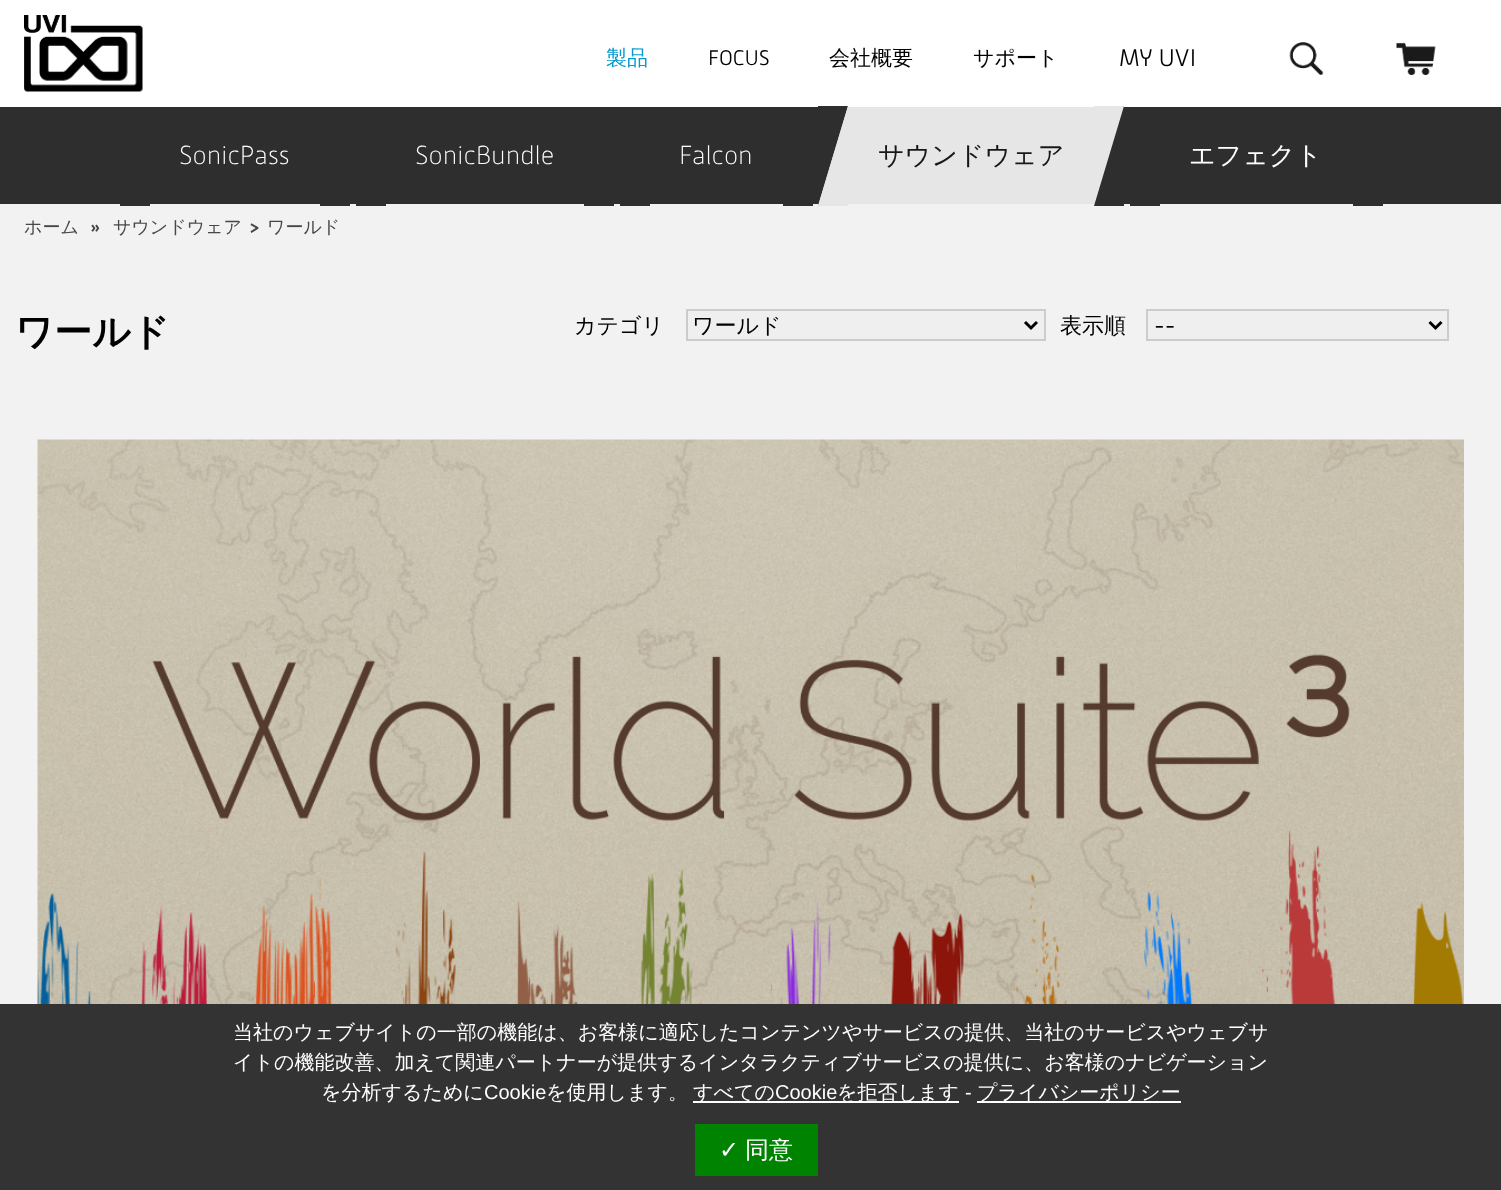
<svg xmlns="http://www.w3.org/2000/svg" width="1501" height="1190" viewBox="0 0 1501 1190">
  <rect width="100%" height="100%" fill="#f2f2f2"/>
  <path d="M0 0h1501v107H0z" fill="#fff"/>
  <image x="24" y="15" width="119" height="77" href="img/1.png"/>
  <image x="1289" y="42" width="35" height="33" href="img/2.png"/>
  <image x="1396" y="42" width="40" height="33" href="img/3.png"/>
  <path d="M0 107h1501v97H0z" fill="#2e2e2e"/>
  <path d="M120 204h30v2H120z" fill="#2e2e2e"/>
  <path d="M320 204h30v2H320z" fill="#2e2e2e"/>
  <path d="M356 204h30v2H356z" fill="#2e2e2e"/>
  <path d="M584 204h30v2H584z" fill="#2e2e2e"/>
  <path d="M620 204h30v2H620z" fill="#2e2e2e"/>
  <path d="M783 204h30v2H783z" fill="#2e2e2e"/>
  <path d="M818 107h306v97H818z" fill="#e6e6e6"/>
  <path d="M818 106H848L818 206Z" fill="#2e2e2e"/>
  <path d="M848 106V206H818Z" fill="#e6e6e6"/>
  <path d="M1094 106H1124L1094 206Z" fill="#e6e6e6"/>
  <path d="M1124 106V206H1094Z" fill="#2e2e2e"/>
  <path d="M1130 204h30v2H1130z" fill="#2e2e2e"/>
  <path d="M1353 204h30v2H1353z" fill="#2e2e2e"/>
  <path d="M687 310h358v30H687z" fill="#efefef" stroke="#ccc" stroke-width="2"/>
  <path d="M1025 322L1031 328L1037 322" fill="none" stroke="#000" stroke-width="3"/>
  <path d="M1147 310h301v30H1147z" fill="#efefef" stroke="#ccc" stroke-width="2"/>
  <path d="M1429.5 322L1435.5 328L1441.5 322" fill="none" stroke="#000" stroke-width="3"/>
  <image x="37" y="439" width="1427" height="565" href="img/4.png"/>
  <path d="M0 1004h1501v186H0z" fill="#333"/>
  <path d="M693 1101h266v2H693z" fill="#fff"/>
  <path d="M977 1101h204v2H977z" fill="#fff"/>
  <path d="M695 1124h123v52H695z" fill="#008300"/>
  <text x="606" y="65" font-family="WenQuanYi Zen Hei" font-size="21" font-weight="500" fill="#059ad0">製品</text>
  <text x="708" y="65" font-family="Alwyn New" font-size="21" font-weight="300" fill="#000">FOCUS</text>
  <g font-family="WenQuanYi Zen Hei" font-size="21" font-weight="500" fill="#000">
    <text x="829" y="65">会社概要</text>
    <text x="973" y="65">サポート</text>
  </g>
  <text x="1119" y="66" font-family="Alwyn New" font-size="24" font-weight="300" fill="#000">MY UVI</text>
  <g font-family="Alwyn New" font-size="26" font-weight="100" fill="#fff">
    <text x="179" y="164">SonicPass</text>
    <text x="415" y="164">SonicBundle</text>
    <text x="679" y="164">Falcon</text>
  </g>
  <text x="878" y="164" font-family="WenQuanYi Zen Hei" font-size="26" font-weight="500" fill="#171717">サウンドウェア</text>
  <text x="1189" y="164" font-family="WenQuanYi Zen Hei" font-size="26" font-weight="500" fill="#fff">エフェクト</text>
  <text x="24" y="233" font-family="WenQuanYi Zen Hei" font-size="18" font-weight="500" fill="#474747">ホーム</text>
  <text x="90" y="233" font-family="Alwyn New" font-size="18" font-weight="500" fill="#474747">»</text>
  <text x="113" y="233" font-family="WenQuanYi Zen Hei" font-size="18" font-weight="500" fill="#474747">サウンドウェア</text>
  <text x="249" y="233" font-family="Alwyn New" font-size="18" font-weight="500" fill="#474747">&gt;</text>
  <text x="267" y="233" font-family="WenQuanYi Zen Hei" font-size="18" font-weight="500" fill="#474747">ワールド</text>
  <text x="15" y="345" font-family="WenQuanYi Zen Hei" font-size="38" font-weight="bold" fill="#000">ワールド</text>
  <g font-family="WenQuanYi Zen Hei" font-size="22" font-weight="500" fill="#000">
    <text x="574" y="333">カテゴリ</text>
    <text x="692" y="333">ワールド</text>
    <text x="1060" y="333">表示順</text>
  </g>
  <text x="1154" y="333" font-family="Alwyn New" font-size="22" fill="#000">--</text>
  <g font-family="WenQuanYi Zen Hei" font-size="20" font-weight="500" fill="#fff">
    <text x="233" y="1039">当社のウェブサイトの一部の機能は、お客様に適応したコンテンツやサービスの提供、当社のサービスやウェブサ</text>
    <text x="233" y="1069">イトの機能改善、加えて関連パートナーが提供するインタラクティブサービスの提供に、お客様のナビゲーション</text>
    <text x="321" y="1099">を分析するために</text>
  </g>
  <text x="484" y="1099" font-family="Liberation Sans" font-size="20" fill="#fff">Cookie</text>
  <g font-family="WenQuanYi Zen Hei" font-size="20" font-weight="500" fill="#fff">
    <text x="546" y="1099">を使用します。</text>
    <text x="693" y="1099">すべての</text>
  </g>
  <text x="775" y="1099" font-family="Liberation Sans" font-size="20" fill="#fff">Cookie</text>
  <text x="837" y="1099" font-family="WenQuanYi Zen Hei" font-size="20" font-weight="500" fill="#fff">を拒否します</text>
  <text x="965" y="1099" font-family="Liberation Sans" font-size="20" fill="#fff">-</text>
  <text x="977" y="1099" font-family="WenQuanYi Zen Hei" font-size="20" font-weight="500" fill="#fff">プライバシーポリシー</text>
  <text x="719" y="1158" font-family="DejaVu Sans" font-size="24" fill="#fff">✓</text>
  <text x="745" y="1158" font-family="WenQuanYi Zen Hei" font-size="24" font-weight="500" fill="#fff">同意</text>
</svg>
